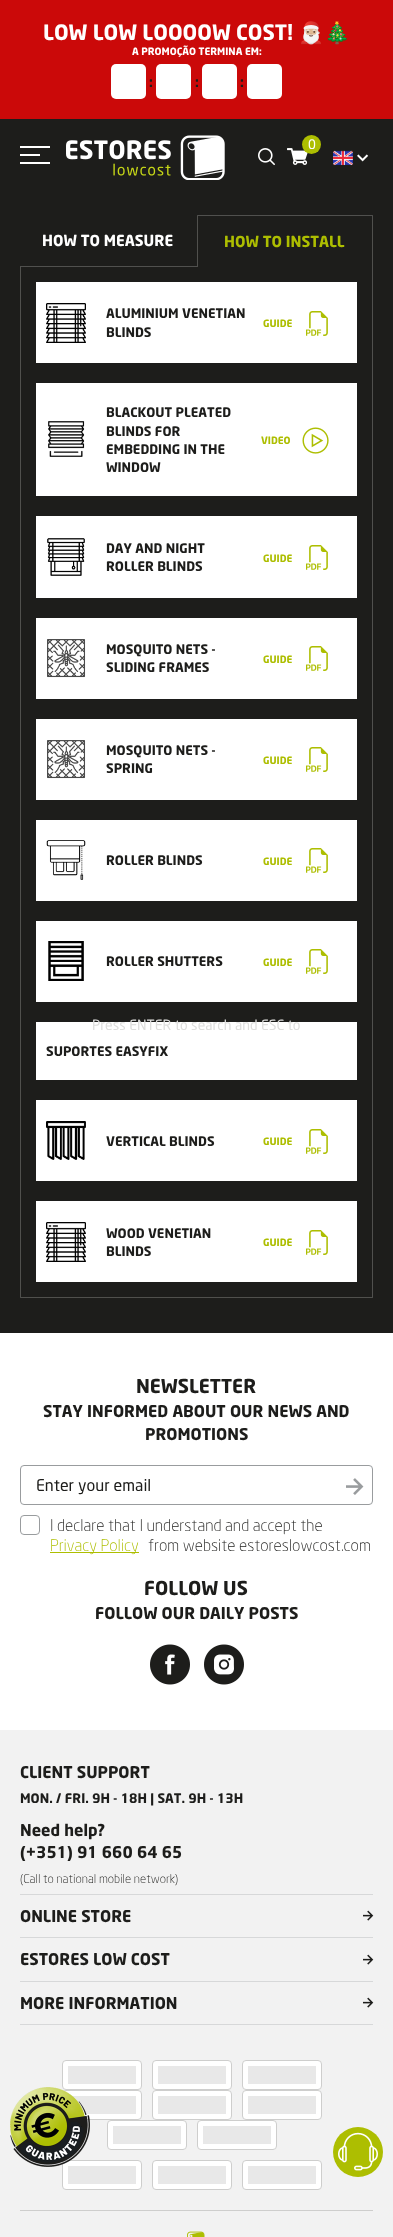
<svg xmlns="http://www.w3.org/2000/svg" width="393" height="2237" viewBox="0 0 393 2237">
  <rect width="100%" height="100%" fill="#1d1d1b"/>
  <path d="M0 0h393v119H0z" fill="#cb0909"/>
  <rect x="111" y="64" width="35" height="35" rx="5" fill="#fff"/>
  <rect x="156" y="64" width="35" height="35" rx="5" fill="#fff"/>
  <rect x="202" y="64" width="35" height="35" rx="5" fill="#fff"/>
  <rect x="247" y="64" width="35" height="35" rx="5" fill="#fff"/>
  <image x="66" y="135" width="159" height="45" href="img/1.png"/>
  <image x="287" y="148" width="21" height="17" href="img/2.png"/>
  <circle cx="311.5" cy="144.5" r="9.5" fill="#adbe01"/>
  <image x="258" y="148" width="17" height="18" href="img/3.png"/>
  <path d="M20 154h20v2H20z" fill="#fff"/>
  <path d="M20 146h30v2H20z" fill="#fff"/>
  <path d="M20 162h30v2H20z" fill="#fff"/>
  <image x="333" y="150" width="20" height="16" href="img/4.png"/>
  <image x="357" y="154" width="12" height="8" href="img/5.png"/>
  <path d="M20 266h177v1H20z" fill="#50504e"/>
  <path d="M197 215H373L372 216H198Z" fill="#50504e"/>
  <path d="M373 215V267H372V216Z" fill="#c6c6c54d"/>
  <path d="M197 267V215L198 216V267Z" fill="#c6c6c54d"/>
  <path d="M373 267V1298L372 1297V267Z" fill="#50504e"/>
  <path d="M373 1298H20L21 1297H372Z" fill="#c6c6c54d"/>
  <path d="M20 1298V267H21V1297Z" fill="#c6c6c54d"/>
  <path d="M36 282h321v81H36z" fill="#fff"/>
  <image x="46" y="303" width="40" height="40" href="img/6.png"/>
  <image x="306" y="311" width="22" height="25" href="img/7.png"/>
  <path d="M36 383h321v113H36z" fill="#fff"/>
  <image x="48" y="421" width="37" height="36" href="img/8.png"/>
  <image x="302" y="427" width="27" height="27" href="img/9.png"/>
  <path d="M36 516h321v82H36z" fill="#fff"/>
  <image x="47" y="538" width="38" height="38" href="img/10.png"/>
  <image x="306" y="545" width="22" height="25" href="img/7.png"/>
  <path d="M36 618h321v81H36z" fill="#fff"/>
  <image x="47" y="639" width="39" height="39" href="img/11.png"/>
  <image x="306" y="646" width="22" height="25" href="img/7.png"/>
  <path d="M36 719h321v81H36z" fill="#fff"/>
  <image x="47" y="740" width="39" height="39" href="img/11.png"/>
  <image x="306" y="747" width="22" height="25" href="img/7.png"/>
  <path d="M36 820h321v81H36z" fill="#fff"/>
  <image x="46" y="840" width="40" height="40" href="img/12.png"/>
  <image x="306" y="848" width="22" height="25" href="img/7.png"/>
  <path d="M36 921h321v81H36z" fill="#fff"/>
  <image x="48" y="941" width="36" height="40" href="img/13.png"/>
  <image x="306" y="949" width="22" height="25" href="img/7.png"/>
  <path d="M36 1022h321v58H36z" fill="#fff"/>
  <path d="M36 1100h321v81H36z" fill="#fff"/>
  <image x="46" y="1121" width="40" height="39" href="img/14.png"/>
  <image x="306" y="1129" width="22" height="25" href="img/7.png"/>
  <path d="M36 1201h321v81H36z" fill="#fff"/>
  <image x="46" y="1222" width="40" height="40" href="img/15.png"/>
  <image x="306" y="1230" width="22" height="25" href="img/7.png"/>
  <path d="M0 1730h393v507H0z" fill="#f2f2f2"/>
  <path d="M0 1333h393v397H0z" fill="#fff"/>
  <rect x="20.5" y="1465.5" width="352" height="39" rx="3.5" fill="none" stroke="#999c9e"/>
  <image x="346" y="1478" width="18" height="17" href="img/16.png"/>
  <rect x="20.5" y="1515.5" width="19" height="19" rx="3.5" fill="none" stroke="#999c9e"/>
  <path d="M50 1552h89v1H50z" fill="#adbe01"/>
  <image x="150" y="1644" width="40" height="41" href="img/17.png"/>
  <image x="204" y="1644" width="40" height="41" href="img/18.png"/>
  <path d="M20 1894h353v1H20z" fill="#d7d8d9"/>
  <image x="363" y="1910" width="11" height="11" href="img/19.png"/>
  <path d="M20 1937h353v1H20z" fill="#d7d8d9"/>
  <image x="363" y="1954" width="11" height="11" href="img/19.png"/>
  <path d="M20 1981h353v1H20z" fill="#d7d8d9"/>
  <path d="M20 2024h353v1H20z" fill="#d7d8d9"/>
  <image x="363" y="1997" width="11" height="11" href="img/19.png"/>
  <rect x="62.5" y="2060.5" width="79" height="29" rx="3.5" fill="#fff" stroke="#cececd"/>
  <path d="M68 2066h68v18H68z" fill="#e8e8e8"/>
  <rect x="152.5" y="2060.5" width="79" height="29" rx="3.5" fill="#fff" stroke="#cececd"/>
  <path d="M158 2066h68v18H158z" fill="#e8e8e8"/>
  <rect x="242.5" y="2060.5" width="79" height="29" rx="3.5" fill="#fff" stroke="#cececd"/>
  <path d="M248 2066h68v18H248z" fill="#e8e8e8"/>
  <rect x="62.5" y="2090.5" width="79" height="29" rx="3.5" fill="#fff" stroke="#cececd"/>
  <path d="M72 2096h64v18H72z" fill="#e8e8e8"/>
  <rect x="152.5" y="2090.5" width="79" height="29" rx="3.5" fill="#fff" stroke="#cececd"/>
  <path d="M158 2096h68v18H158z" fill="#e8e8e8"/>
  <rect x="242.5" y="2090.5" width="79" height="29" rx="3.5" fill="#fff" stroke="#cececd"/>
  <path d="M248 2096h68v18H248z" fill="#e8e8e8"/>
  <rect x="107.5" y="2120.5" width="79" height="29" rx="3.5" fill="#fff" stroke="#cececd"/>
  <path d="M113 2126h68v18H113z" fill="#e8e8e8"/>
  <rect x="197.5" y="2120.5" width="79" height="29" rx="3.5" fill="#fff" stroke="#cececd"/>
  <path d="M203 2126h68v18H203z" fill="#e8e8e8"/>
  <rect x="62.5" y="2160.5" width="79" height="29" rx="3.5" fill="#fff" stroke="#cececd"/>
  <path d="M68 2166h68v18H68z" fill="#e8e8e8"/>
  <rect x="152.5" y="2160.5" width="79" height="29" rx="3.5" fill="#fff" stroke="#cececd"/>
  <path d="M158 2166h68v18H158z" fill="#e8e8e8"/>
  <rect x="242.5" y="2160.5" width="79" height="29" rx="3.5" fill="#fff" stroke="#cececd"/>
  <path d="M248 2166h68v18H248z" fill="#e8e8e8"/>
  <path d="M20 2210h353v1H20z" fill="#cececd"/>
  <image x="187" y="2231" width="18" height="6" href="img/20.png"/>
  <image x="10" y="2087" width="80" height="80" href="img/21.png"/>
  <circle cx="358" cy="2152" r="25" fill="#adbe01"/>
  <image x="338" y="2132" width="40" height="39" href="img/22.png"/>
  <text x="43" y="40" font-family="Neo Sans" font-size="21" font-weight="bold" fill="#fff">LOW LOW LOOOOW COST!</text>
  <text x="298" y="40" font-family="Noto Color Emoji" font-size="21" font-weight="bold" fill="#fff">🎅🏼🎄</text>
  <text x="132" y="55" font-family="Neo Sans" font-size="10" font-weight="bold" fill="#fff">A PROMOÇÃO TERMINA EM:</text>
  <g font-family="Neo Sans" font-size="14" font-weight="bold" fill="#1d1d1b">
    <text x="149" y="87">:</text>
    <text x="195" y="87">:</text>
    <text x="240" y="87">:</text>
  </g>
  <text x="308" y="149" font-family="Neo Sans" font-size="13" fill="#fff">0</text>
  <text x="42" y="246" font-family="Neo Sans" font-size="15" font-weight="bold" fill="#fff">HOW TO MEASURE</text>
  <text x="224" y="247" font-family="Neo Sans" font-size="15" font-weight="bold" fill="#adbe01">HOW TO INSTALL</text>
  <g font-family="Neo Sans" font-size="13" font-weight="bold" fill="#1d1d1b">
    <text x="106" y="318">ALUMINIUM VENETIAN</text>
    <text x="106" y="337">BLINDS</text>
  </g>
  <text x="263" y="327" font-family="Neo Sans" font-size="10" font-weight="bold" fill="#adbe01">GUIDE</text>
  <g font-family="Neo Sans" font-size="13" font-weight="bold" fill="#1d1d1b">
    <text x="106" y="417">BLACKOUT PLEATED</text>
    <text x="106" y="436">BLINDS FOR</text>
    <text x="106" y="454">EMBEDDING IN THE</text>
    <text x="106" y="472">WINDOW</text>
  </g>
  <text x="261" y="444" font-family="Neo Sans" font-size="10" font-weight="bold" fill="#adbe01">VIDEO</text>
  <g font-family="Neo Sans" font-size="13" font-weight="bold" fill="#1d1d1b">
    <text x="106" y="553">DAY AND NIGHT</text>
    <text x="106" y="571">ROLLER BLINDS</text>
  </g>
  <text x="263" y="562" font-family="Neo Sans" font-size="10" font-weight="bold" fill="#adbe01">GUIDE</text>
  <g font-family="Neo Sans" font-size="13" font-weight="bold" fill="#1d1d1b">
    <text x="106" y="654">MOSQUITO NETS -</text>
    <text x="106" y="672">SLIDING FRAMES</text>
  </g>
  <text x="263" y="663" font-family="Neo Sans" font-size="10" font-weight="bold" fill="#adbe01">GUIDE</text>
  <g font-family="Neo Sans" font-size="13" font-weight="bold" fill="#1d1d1b">
    <text x="106" y="755">MOSQUITO NETS -</text>
    <text x="106" y="773">SPRING</text>
  </g>
  <text x="263" y="764" font-family="Neo Sans" font-size="10" font-weight="bold" fill="#adbe01">GUIDE</text>
  <text x="106" y="865" font-family="Neo Sans" font-size="13" font-weight="bold" fill="#1d1d1b">ROLLER BLINDS</text>
  <text x="263" y="865" font-family="Neo Sans" font-size="10" font-weight="bold" fill="#adbe01">GUIDE</text>
  <text x="106" y="966" font-family="Neo Sans" font-size="13" font-weight="bold" fill="#1d1d1b">ROLLER SHUTTERS</text>
  <text x="263" y="966" font-family="Neo Sans" font-size="10" font-weight="bold" fill="#adbe01">GUIDE</text>
  <g font-family="Neo Sans" font-size="13" font-weight="bold" fill="#1d1d1b">
    <text x="46" y="1056">SUPORTES EASYFIX</text>
    <text x="106" y="1146">VERTICAL BLINDS</text>
  </g>
  <text x="263" y="1145" font-family="Neo Sans" font-size="10" font-weight="bold" fill="#adbe01">GUIDE</text>
  <g font-family="Neo Sans" font-size="13" font-weight="bold" fill="#1d1d1b">
    <text x="106" y="1238">WOOD VENETIAN</text>
    <text x="106" y="1256">BLINDS</text>
  </g>
  <text x="263" y="1246" font-family="Neo Sans" font-size="10" font-weight="bold" fill="#adbe01">GUIDE</text>
  <text x="92" y="1030" font-family="Neo Sans" font-size="14" fill="#dededd">Press ENTER to search and ESC to</text>
  <text x="136" y="1393" font-family="Neo Sans" font-size="19" font-weight="bold" fill="#1d1d1b">NEWSLETTER</text>
  <g font-family="Neo Sans" font-size="16" font-weight="bold" fill="#1d1d1b">
    <text x="43" y="1417">STAY INFORMED ABOUT OUR NEWS AND</text>
    <text x="145" y="1440">PROMOTIONS</text>
  </g>
  <text x="36" y="1491" font-family="Neo Sans" font-size="16" fill="#1d1d1b">Enter your email</text>
  <text x="50" y="1531" font-family="Neo Sans" font-size="16" font-weight="300" fill="#1d1d1b">I declare that I understand and accept the</text>
  <text x="50" y="1551" font-family="Neo Sans" font-size="16" font-weight="300" fill="#adbe01">Privacy Policy</text>
  <text x="148" y="1551" font-family="Neo Sans" font-size="16" font-weight="300" fill="#1d1d1b">from website estoreslowcost.com</text>
  <text x="144" y="1595" font-family="Neo Sans" font-size="19" font-weight="bold" fill="#1d1d1b">FOLLOW US</text>
  <g font-family="Neo Sans" font-size="16" font-weight="bold" fill="#1d1d1b">
    <text x="95" y="1619">FOLLOW OUR DAILY POSTS</text>
    <text x="20" y="1778">CLIENT SUPPORT</text>
  </g>
  <text x="20" y="1803" font-family="Neo Sans" font-size="13" font-weight="bold" fill="#1d1d1b">MON. / FRI. 9H - 18H | SAT. 9H - 13H</text>
  <g font-family="Neo Sans" font-size="16" font-weight="bold" fill="#1d1d1b">
    <text x="20" y="1836">Need help?</text>
    <text x="20" y="1858">(+351) 91 660 64 65</text>
  </g>
  <text x="20" y="1883" font-family="Neo Sans" font-size="12" font-weight="300" fill="#1d1d1b">(Call to national mobile network)</text>
  <g font-family="Neo Sans" font-size="16" font-weight="bold" fill="#1d1d1b">
    <text x="20" y="1922">ONLINE STORE</text>
    <text x="20" y="1965">ESTORES LOW COST</text>
    <text x="20" y="2009">MORE INFORMATION</text>
  </g>
</svg>
